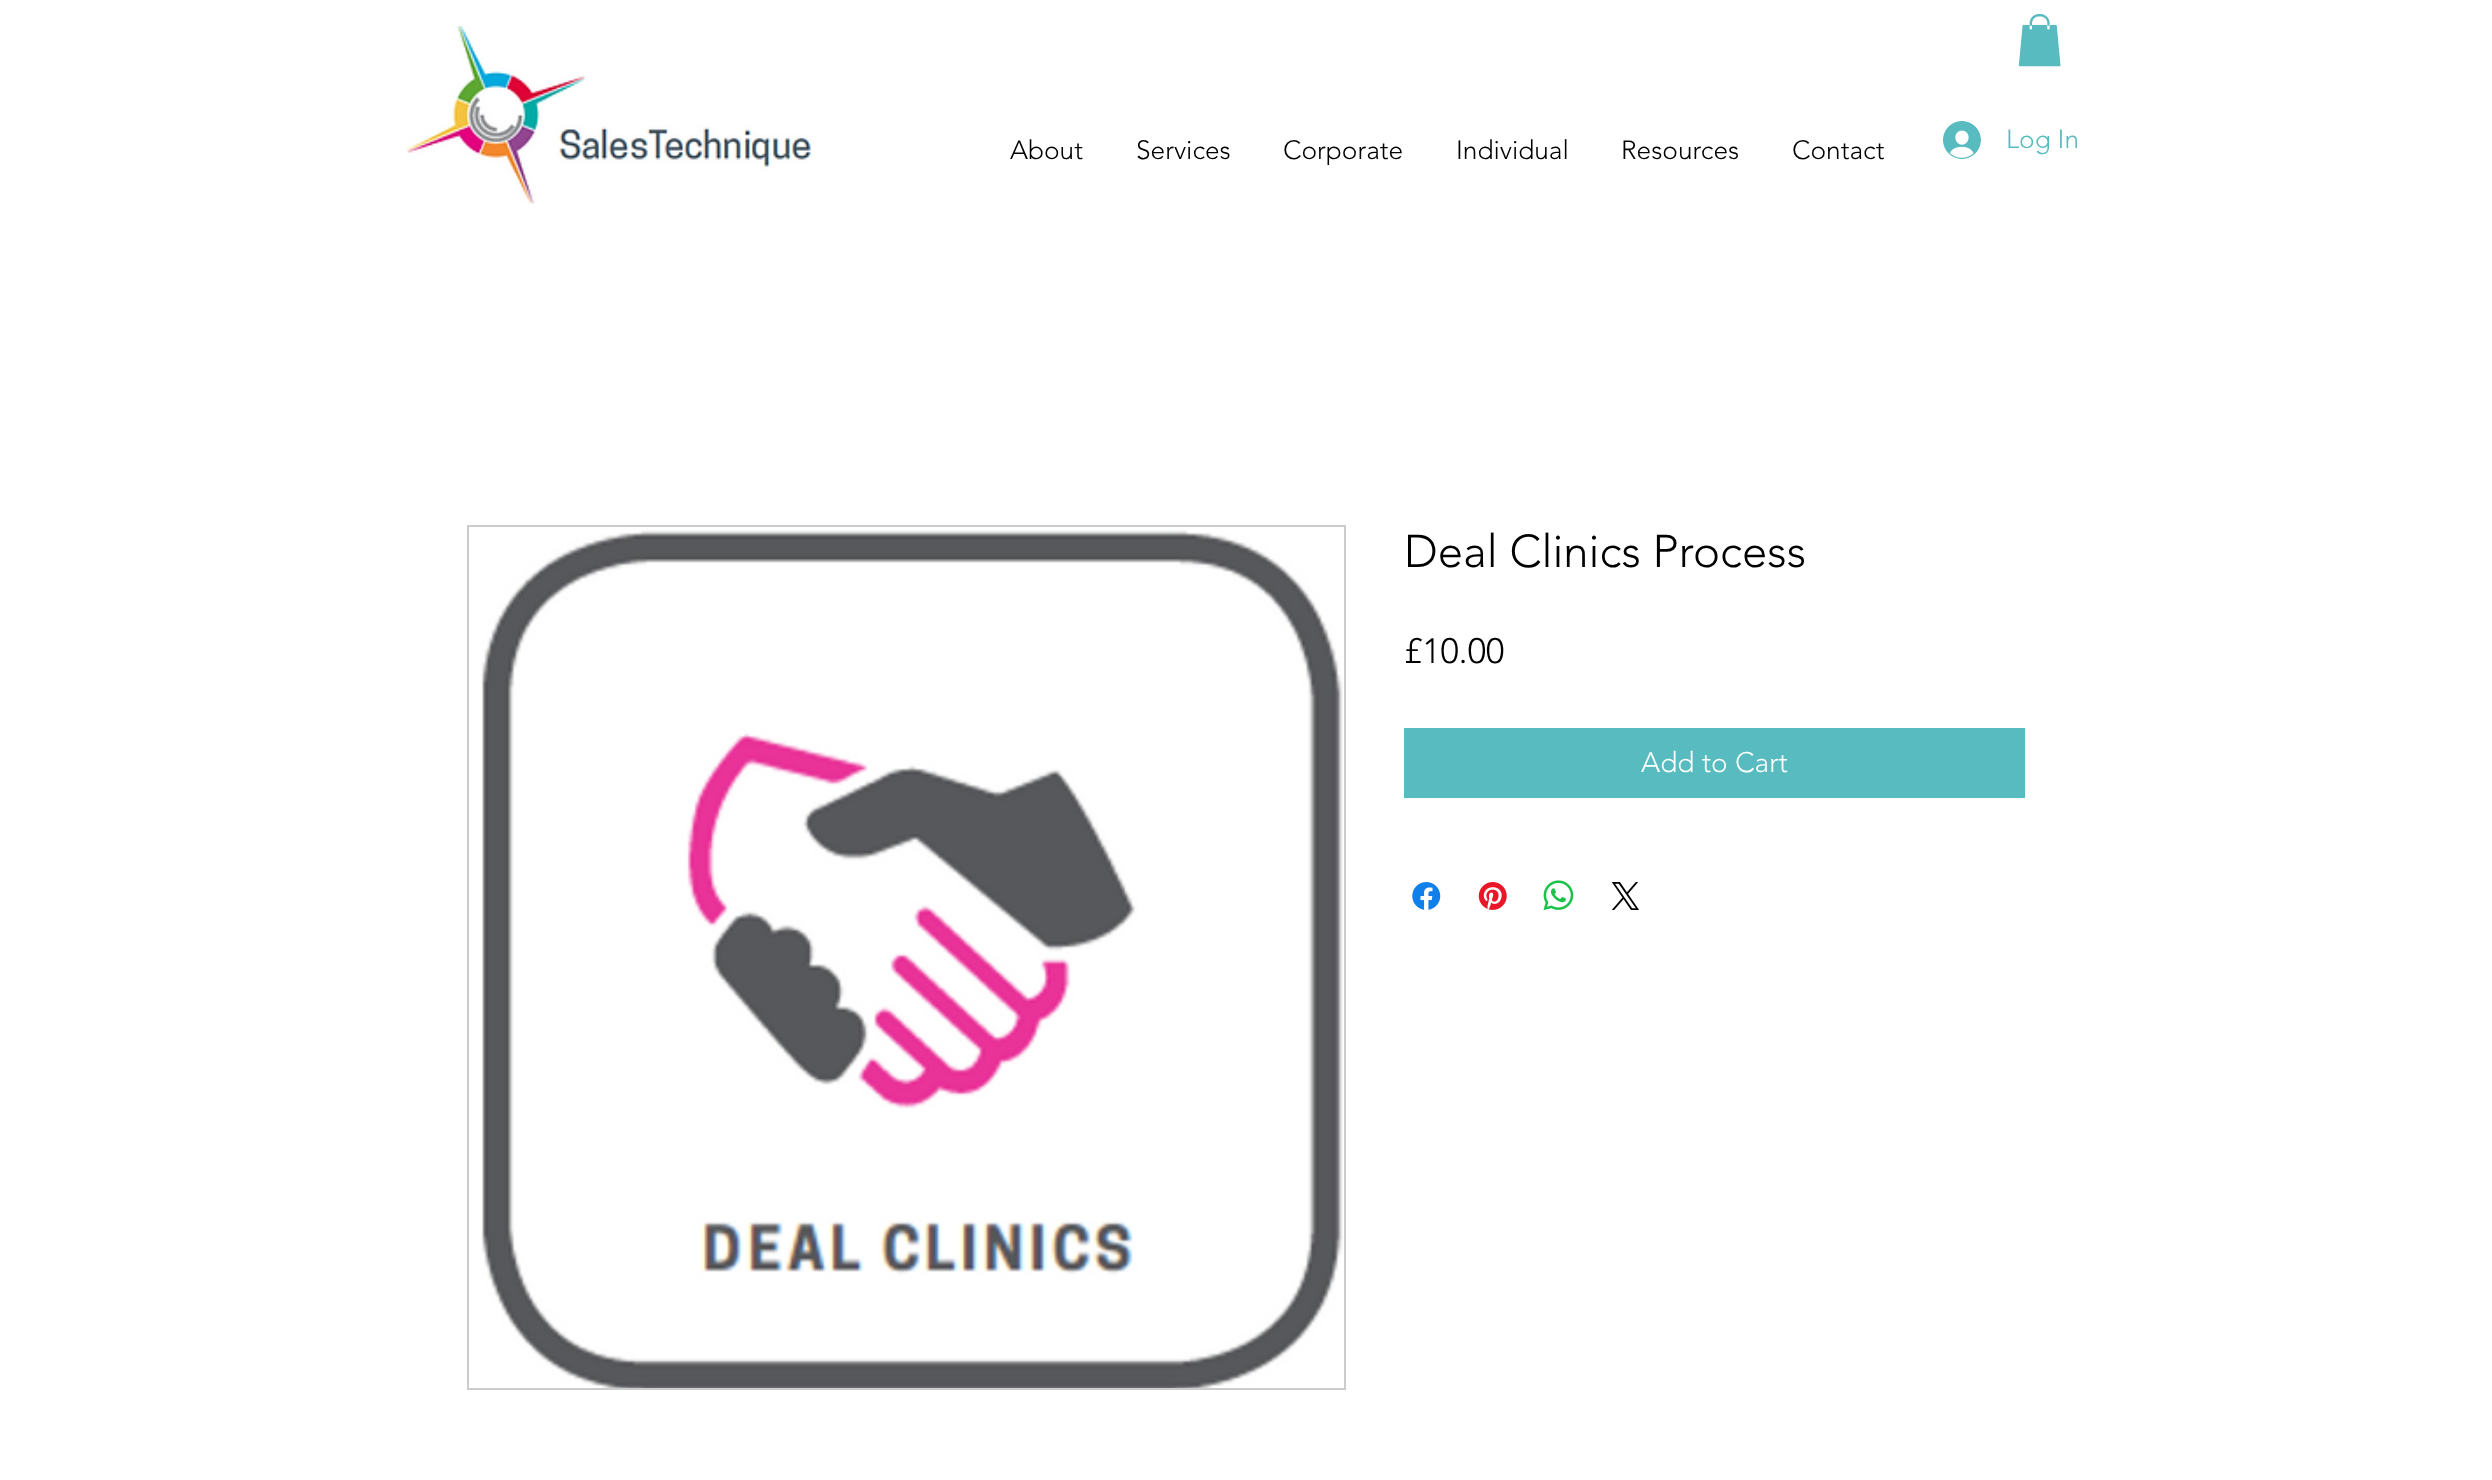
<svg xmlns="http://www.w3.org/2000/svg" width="2492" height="1480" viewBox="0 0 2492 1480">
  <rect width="100%" height="100%" fill="#fff"/>
  <image x="406" y="26" width="406" height="178" href="img/1.png"/>
  <image x="2018" y="14" width="43" height="53" href="img/2.png"/>
  <image x="1943" y="121" width="38" height="38" href="img/3.png"/>
  <path d="M468 526h877v863H468z" fill="none" stroke="#ccc" stroke-width="2"/>
  <image x="481" y="529" width="862" height="859" href="img/4.png"/>
  <path d="M1404 728h621v70H1404z" fill="#57bbbf"/>
  <image x="1412" y="882" width="29" height="28" href="img/5.png"/>
  <image x="1478" y="882" width="29" height="28" href="img/6.png"/>
  <image x="1543" y="880" width="31" height="31" href="img/7.png"/>
  <image x="1611" y="882" width="28" height="28" href="img/8.png"/>
  <g font-family="'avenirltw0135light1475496'" font-size="26.25" font-weight="300" fill="#000">
    <text x="1010" y="159">About</text>
    <text x="1136" y="159">Services</text>
    <text x="1283" y="159">Corporate</text>
    <text x="1456" y="159">Individual</text>
    <text x="1621" y="159">Resources</text>
    <text x="1792" y="159">Contact</text>
  </g>
  <text x="2006" y="148" font-family="'avenirltw0135light1475496'" font-size="26.25" font-weight="300" fill="#57bbbf">Log In</text>
  <text x="1404" y="567" font-family="'avenirltw0135light1475496'" font-size="45.5" font-weight="300" fill="#000">Deal Clinics Process</text>
  <text x="1404" y="663" font-family="'avenirltw0135light1475496'" font-size="35" font-weight="300" fill="#000">£10.00</text>
  <text x="1641" y="772" font-family="'avenirltw0135light1475496'" font-size="28" font-weight="300" fill="#fff">Add to Cart</text>
</svg>
